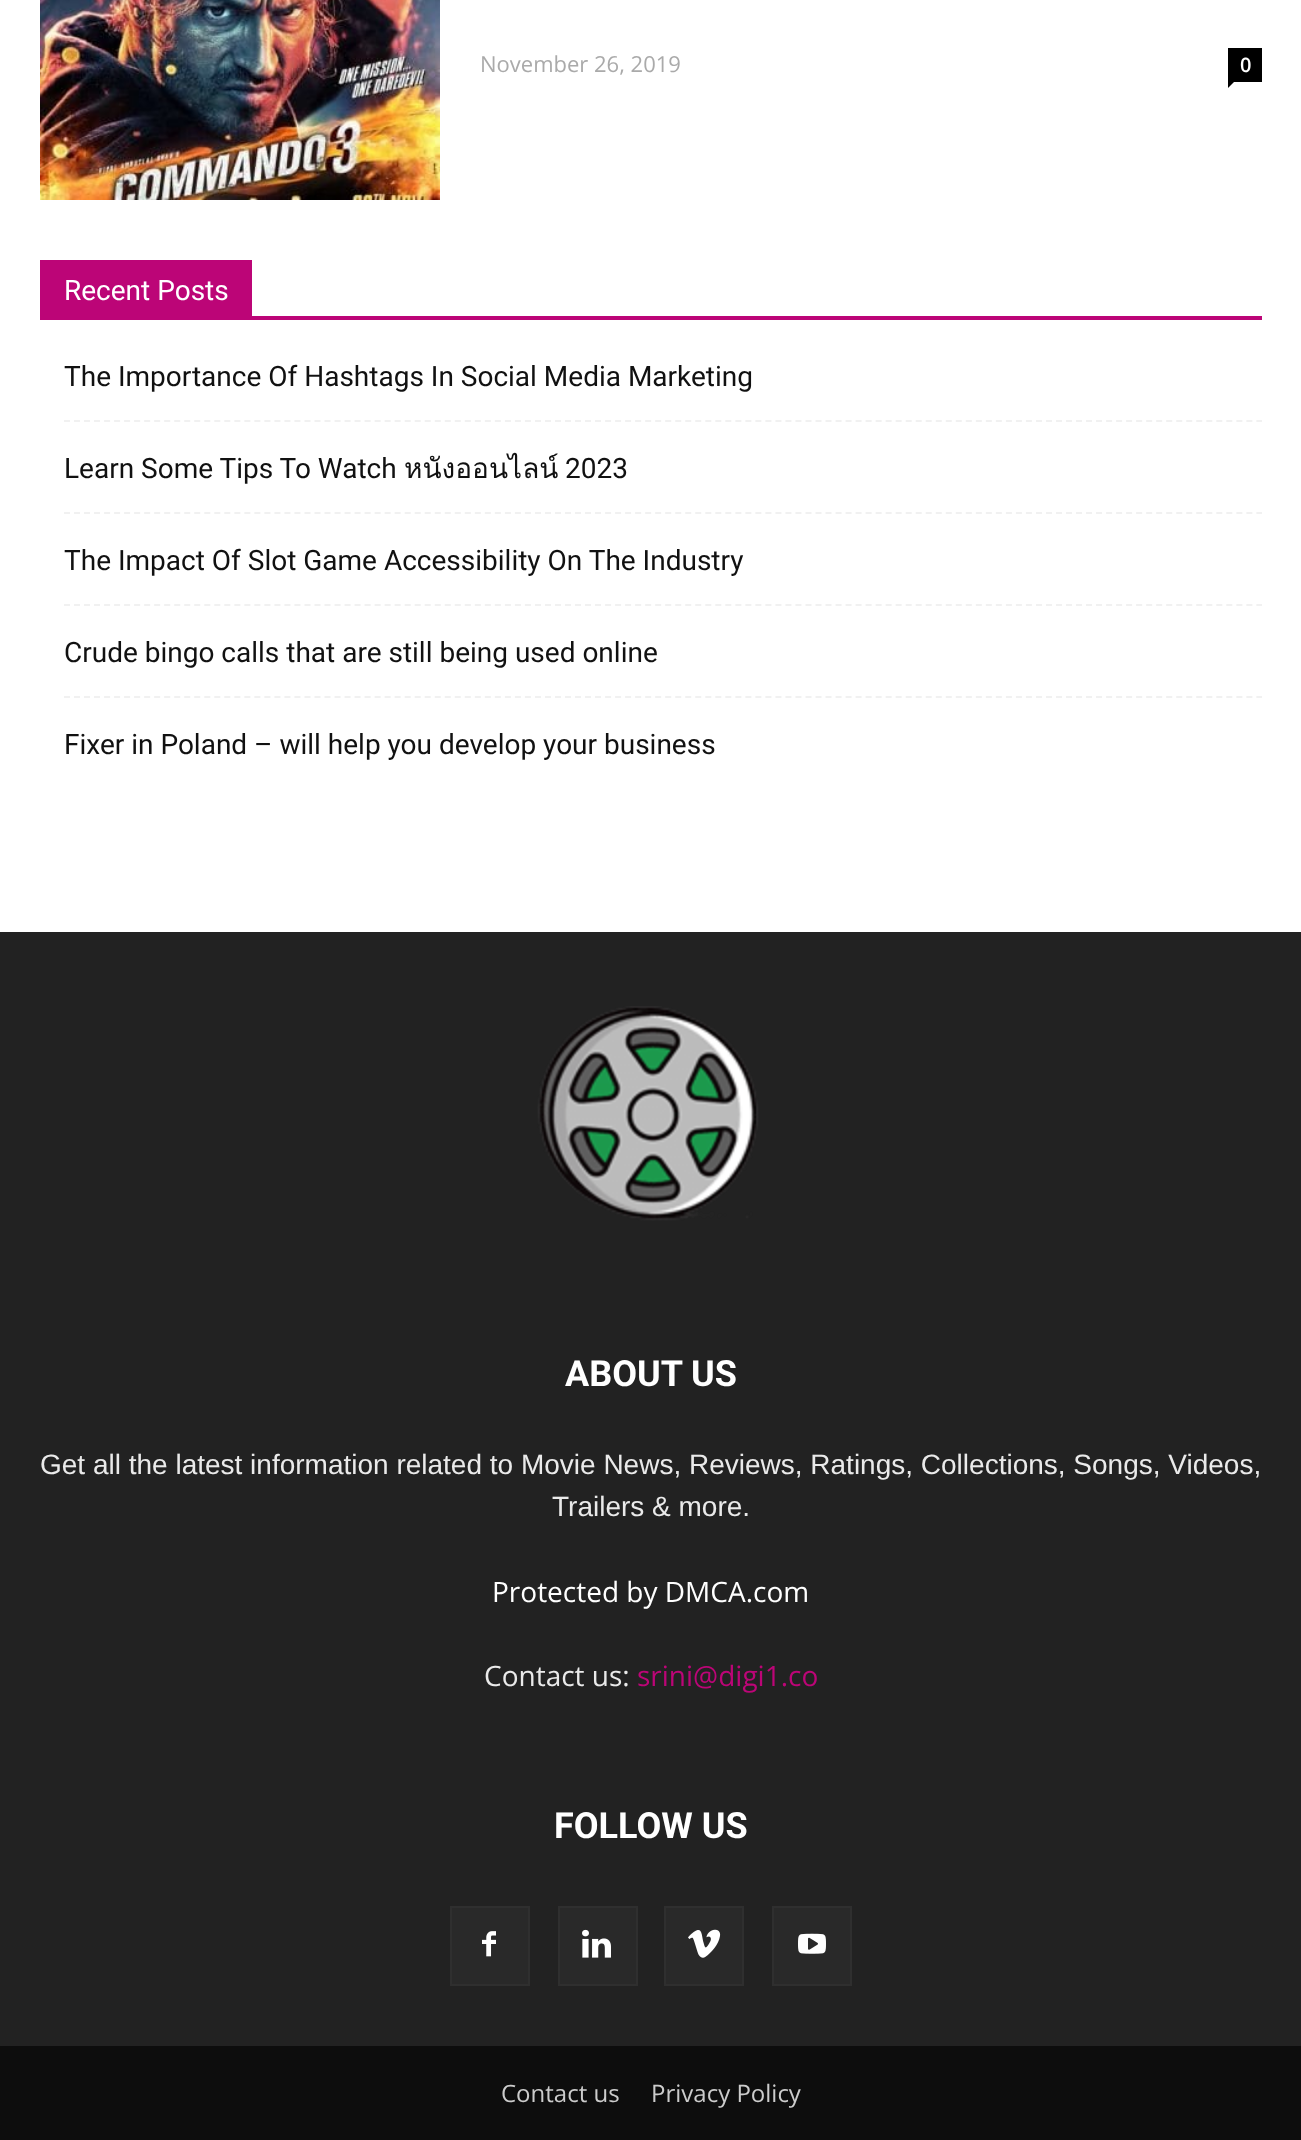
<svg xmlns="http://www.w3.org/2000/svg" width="1301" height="2140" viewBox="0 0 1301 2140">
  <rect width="100%" height="100%" fill="#fff"/>
  <image x="40" y="0" width="400" height="200" href="img/1.png"/>
  <path d="M1228 48h34v34H1228z" fill="#000"/>
  <path d="M1228 82H1234L1228 88Z" fill="#000"/>
  <path d="M40 316h1222v4H40z" fill="#bc0577"/>
  <path d="M40 260h212v56H40z" fill="#bc0577"/>
  <path d="M64 421H1262" fill="none" stroke="#f1f1f1" stroke-width="2" stroke-dasharray="6 4.02"/>
  <path d="M64 513H1262" fill="none" stroke="#f1f1f1" stroke-width="2" stroke-dasharray="6 4.02"/>
  <path d="M64 605H1262" fill="none" stroke="#f1f1f1" stroke-width="2" stroke-dasharray="6 4.02"/>
  <path d="M64 697H1262" fill="none" stroke="#f1f1f1" stroke-width="2" stroke-dasharray="6 4.02"/>
  <path d="M0 932h1301v1114H0z" fill="#222"/>
  <image x="537" y="1006" width="222" height="215" href="img/2.png"/>
  <path d="M452 1908h76v76H452z" fill="#292929"/>
  <image x="482" y="1931" width="14" height="26" href="img/3.png"/>
  <path d="M451 1907h78v78H451z" fill="none" stroke="#2f2f2f" stroke-width="2"/>
  <path d="M560 1908h76v76H560z" fill="#292929"/>
  <image x="582" y="1929" width="29" height="29" href="img/4.png"/>
  <path d="M559 1907h78v78H559z" fill="none" stroke="#2f2f2f" stroke-width="2"/>
  <path d="M666 1908h76v76H666z" fill="#292929"/>
  <image x="688" y="1929" width="33" height="29" href="img/5.png"/>
  <path d="M665 1907h78v78H665z" fill="none" stroke="#2f2f2f" stroke-width="2"/>
  <path d="M774 1908h76v76H774z" fill="#292929"/>
  <image x="798" y="1933" width="28" height="21" href="img/6.png"/>
  <path d="M773 1907h78v78H773z" fill="none" stroke="#2f2f2f" stroke-width="2"/>
  <path d="M0 2046h1301v94H0z" fill="#0d0d0d"/>
  <text x="480" y="72" font-family="Open Sans" font-size="22" fill="#aaa">November 26, 2019</text>
  <text x="1240" y="72" font-family="Open Sans" font-size="20" font-weight="600" fill="#fff">0</text>
  <text x="64" y="300" font-family="Roboto" font-size="28" fill="#fff">Recent Posts</text>
  <g font-family="Roboto" font-size="28" fill="#111">
    <text x="64" y="386">The Importance Of Hashtags In Social Media Marketing</text>
    <text x="64" y="478">Learn Some Tips To Watch</text>
  </g>
  <text x="404" y="478" font-family="Loma" font-size="28" fill="#111">หนังออนไลน์</text>
  <g font-family="Roboto" font-size="28" fill="#111">
    <text x="565" y="478">2023</text>
    <text x="64" y="570">The Impact Of Slot Game Accessibility On The Industry</text>
    <text x="64" y="662">Crude bingo calls that are still being used online</text>
    <text x="64" y="754">Fixer in Poland – will help you develop your business</text>
  </g>
  <text x="565" y="1386" font-family="Roboto" font-size="36" font-weight="bold" fill="#fff">ABOUT US</text>
  <g font-family="Liberation Sans" font-size="28" fill="#eaeaea">
    <text x="40" y="1474">Get all the latest information related to Movie News, Reviews, Ratings, Collections, Songs, Videos,</text>
    <text x="552" y="1516">Trailers &amp; more.</text>
  </g>
  <text x="492" y="1602" font-family="Open Sans" font-size="28" fill="#fff">Protected by DMCA.com</text>
  <text x="484" y="1686" font-family="Open Sans" font-size="28" fill="#eaeaea">Contact us:</text>
  <text x="637" y="1686" font-family="Open Sans" font-size="28" fill="#bc0577">srini@digi1.co</text>
  <text x="554" y="1838" font-family="Roboto" font-size="36" font-weight="bold" fill="#fff">FOLLOW US</text>
  <g font-family="Open Sans" font-size="24" fill="#ccc">
    <text x="501" y="2102">Contact us</text>
    <text x="651" y="2102">Privacy Policy</text>
  </g>
</svg>
